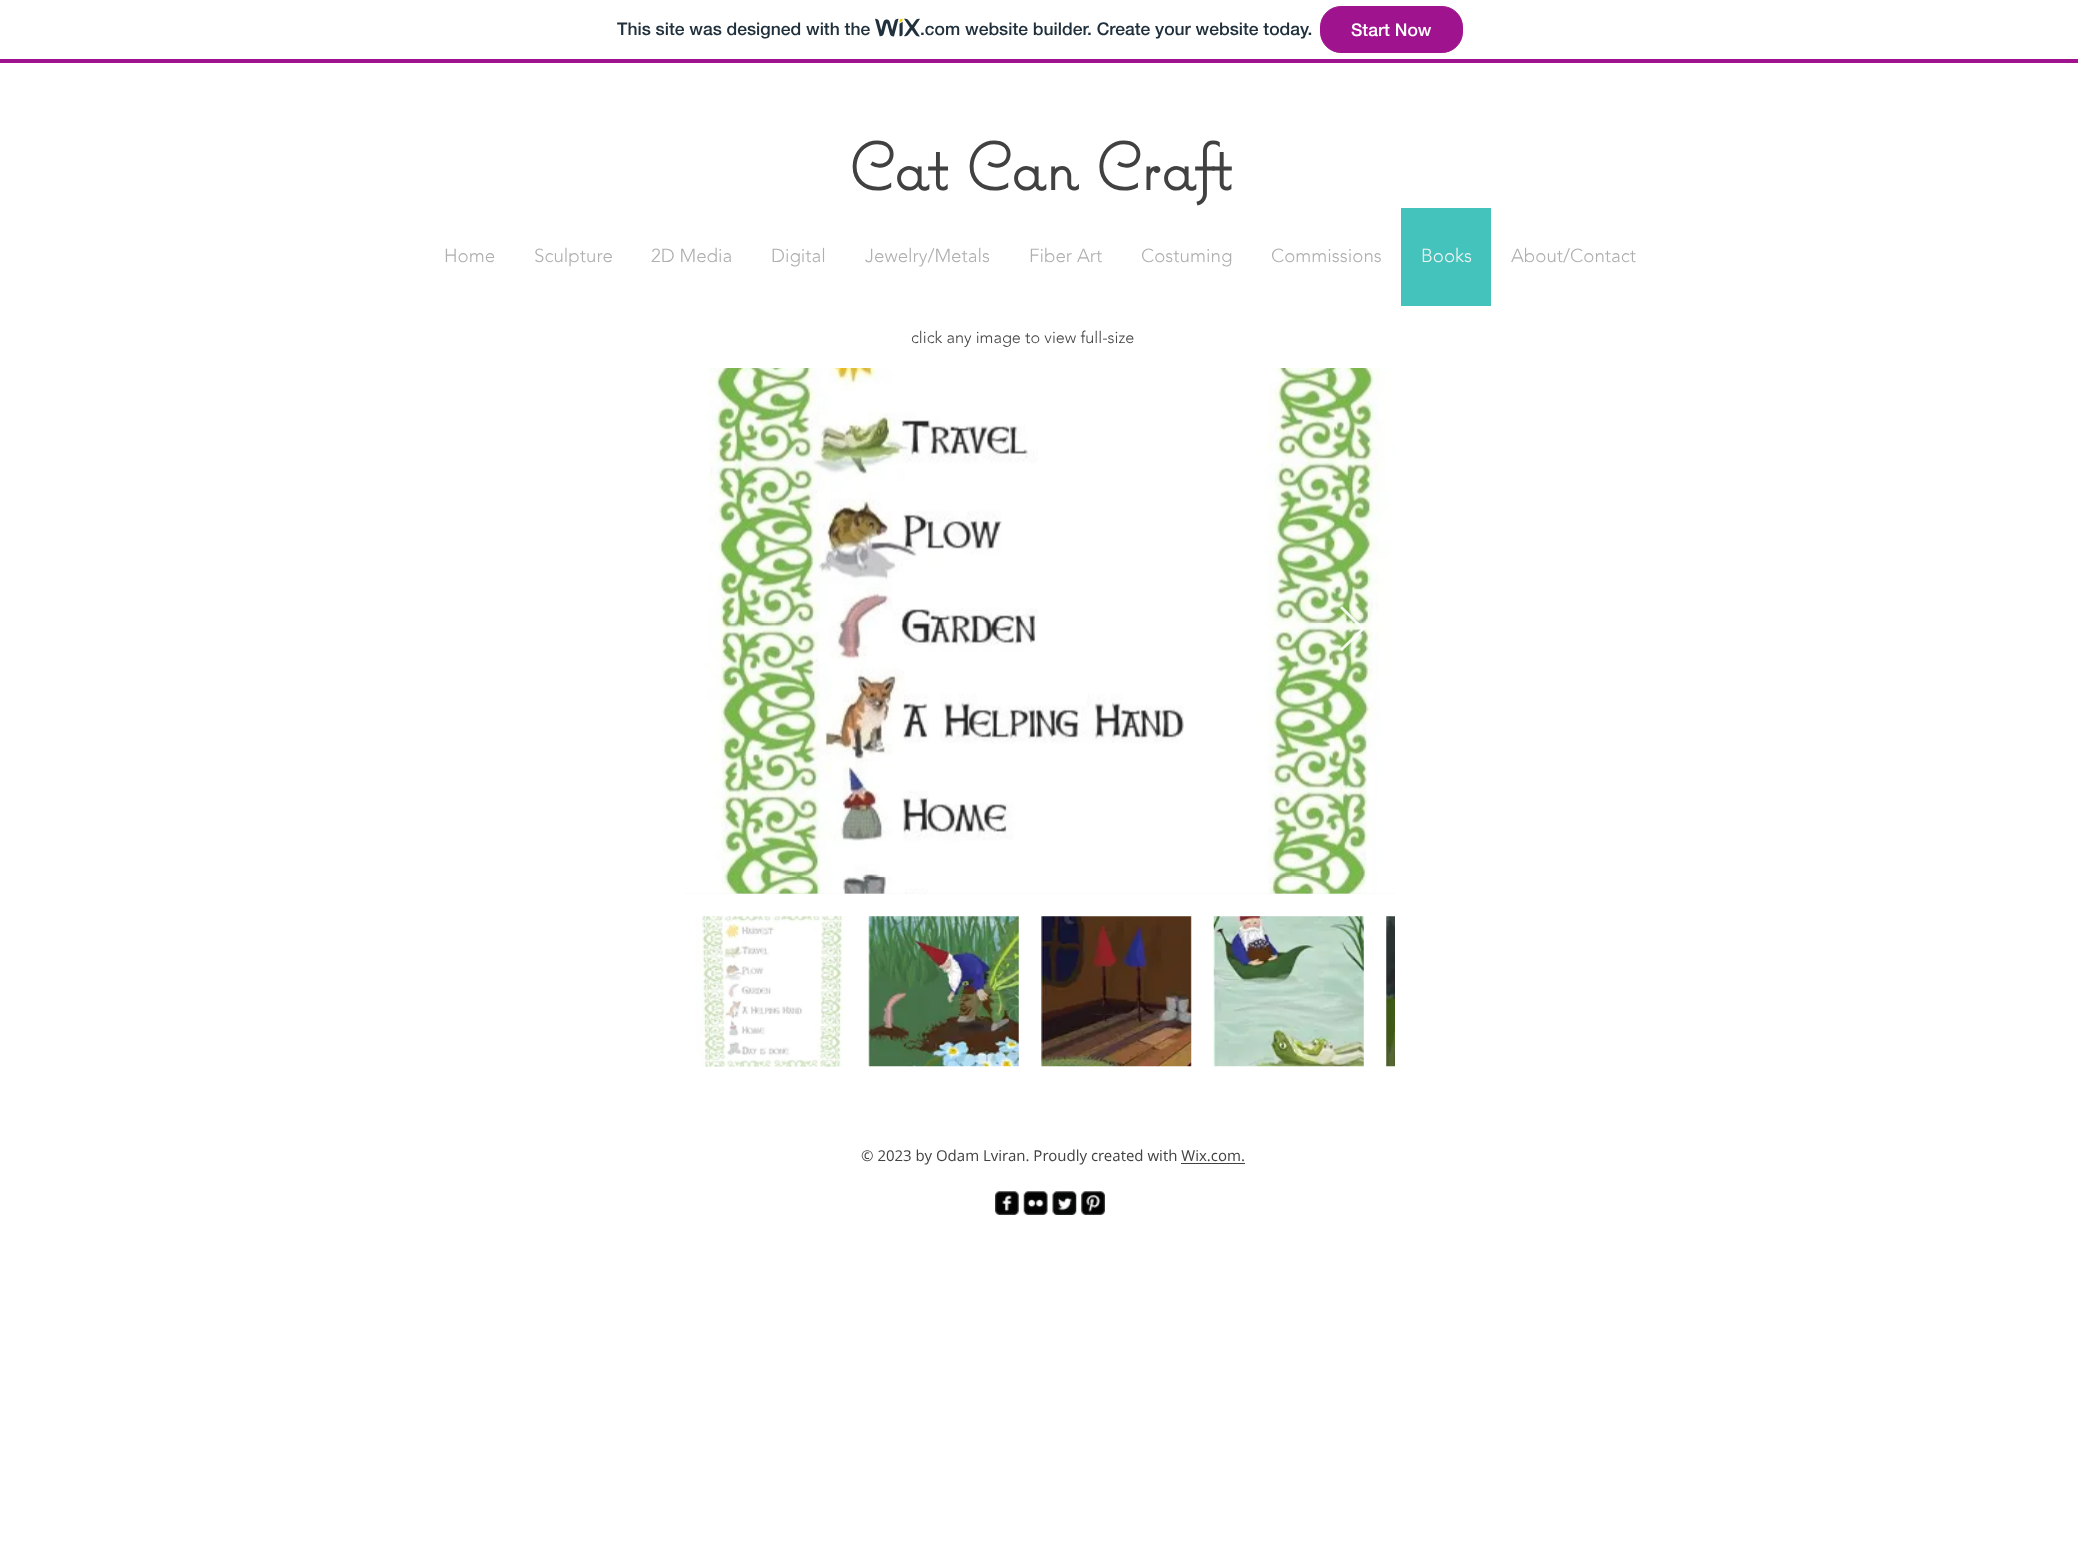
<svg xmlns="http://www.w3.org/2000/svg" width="2078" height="1562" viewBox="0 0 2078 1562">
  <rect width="100%" height="100%" fill="#fff"/>
  <path d="M0 59h2078v4H0z" fill="#a0138e"/>
  <image x="875" y="18" width="45" height="19" href="img/1.png"/>
  <rect x="1320.5" y="6.5" width="142" height="46" rx="20.5" fill="#a0138e" stroke="#a0138e"/>
  <path d="M1401 208h90v98H1401z" fill="#44c2bc"/>
  <path d="M685 893h710v1H685z" fill="#f4f3f2"/>
  <image x="685" y="368" width="710" height="526" href="img/2.png"/>
  <path d="M1340 608L1342 606L1365 629L1342 651L1340 649L1361 629Z" fill="#ffffffe6"/>
  <image x="696" y="916" width="151" height="151" href="img/3.png"/>
  <image x="868" y="916" width="151" height="151" href="img/4.png"/>
  <image x="1041" y="916" width="151" height="151" href="img/5.png"/>
  <image x="1213" y="916" width="151" height="151" href="img/6.png"/>
  <image x="1386" y="916" width="9" height="151" href="img/7.png"/>
  <path d="M1181 1163h64v1H1181z" fill="#414141"/>
  <image x="995" y="1191" width="24" height="24" href="img/8.png"/>
  <image x="1023" y="1191" width="25" height="24" href="img/9.png"/>
  <image x="1052" y="1191" width="25" height="24" href="img/10.png"/>
  <image x="1081" y="1191" width="24" height="24" href="img/11.png"/>
  <g font-family="'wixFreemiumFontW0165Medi'" font-size="17.5" font-weight="500" fill="#20303c">
    <text x="617" y="35">This site was designed with the</text>
    <text x="920" y="35">.com website builder. Create your website today.</text>
  </g>
  <text x="1351" y="36" font-family="'wixFreemiumFontW0165Medi'" font-size="17.5" font-weight="500" fill="#fff">Start Now</text>
  <text x="848" y="190" font-family="'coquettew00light'" font-size="66.25" font-weight="bold" fill="#414141">Cat Can Craft</text>
  <g font-family="'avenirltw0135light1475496'" font-size="18.75" font-weight="300" fill="#afafaf">
    <text x="444" y="262">Home</text>
    <text x="534" y="262">Sculpture</text>
    <text x="651" y="262">2D Media</text>
    <text x="771" y="262">Digital</text>
    <text x="865" y="262">Jewelry/Metals</text>
    <text x="1029" y="262">Fiber Art</text>
    <text x="1141" y="262">Costuming</text>
    <text x="1271" y="262">Commissions</text>
  </g>
  <text x="1421" y="262" font-family="'avenirltw0135light1475496'" font-size="18.75" font-weight="300" fill="#f4f3f2">Books</text>
  <text x="1511" y="262" font-family="'avenirltw0135light1475496'" font-size="18.75" font-weight="300" fill="#afafaf">About/Contact</text>
  <text x="911" y="343" font-family="'avenirltw0135light1475496'" font-size="16.25" font-weight="300" fill="#414141">click any image to view full-size</text>
  <text x="861" y="1161" font-family="Open Sans" font-size="15" fill="#414141">© 2023 by Odam Lviran. Proudly created with Wix.com.</text>
</svg>
